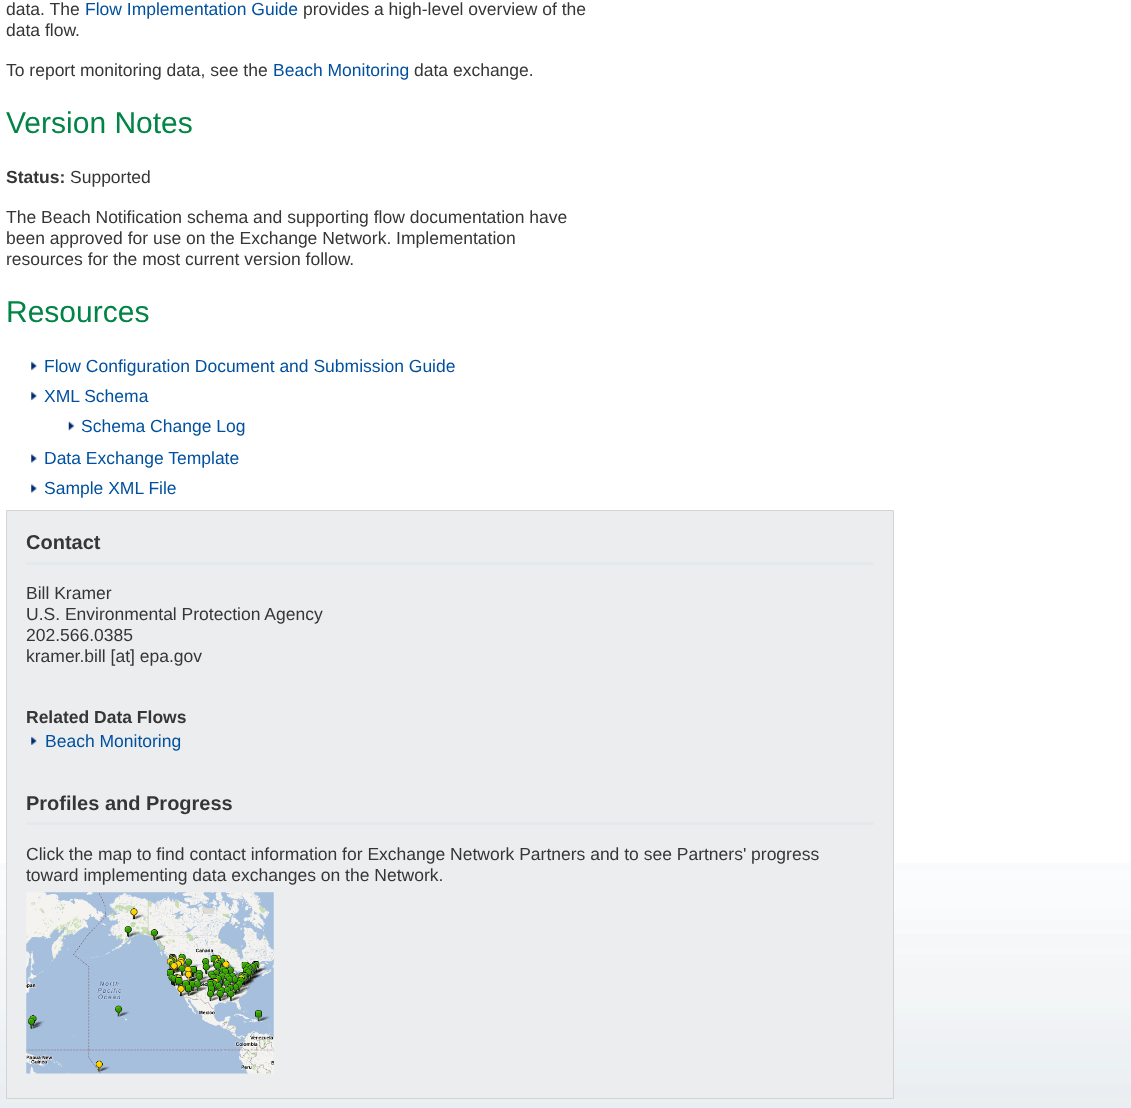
<svg xmlns="http://www.w3.org/2000/svg" width="1131" height="1108" viewBox="0 0 1131 1108">
  <rect width="100%" height="100%" fill="#fff"/>
  <image x="0" y="863" width="1131" height="245" href="img/1.png"/>
  <image x="31" y="361" width="7" height="10" href="img/2.png"/>
  <image x="31" y="391" width="7" height="10" href="img/2.png"/>
  <image x="68" y="421" width="7" height="10" href="img/3.png"/>
  <image x="31" y="453" width="6" height="11" href="img/4.png"/>
  <image x="31" y="483" width="6" height="11" href="img/4.png"/>
  <path d="M7 511h886v586H7z" fill="#ebedee"/>
  <path d="M6.5 510.5h887v588H6.5z" fill="none" stroke="#d3d3d3"/>
  <path d="M26 562h848v3H26z" fill="#e4e9eb"/>
  <image x="31" y="736" width="7" height="10" href="img/5.png"/>
  <path d="M26 822h848v3H26z" fill="#e4e9eb"/>
  <image x="26" y="892" width="248" height="182" href="img/6.png"/>
  <text x="6" y="15" font-family="Liberation Sans" font-size="17.5" fill="#363636">data. The</text>
  <text x="85" y="15" font-family="Liberation Sans" font-size="17.5" fill="#00509f">Flow Implementation Guide</text>
  <g font-family="Liberation Sans" font-size="17.5" fill="#363636">
    <text x="303" y="15">provides a high-level overview of the</text>
    <text x="6" y="36">data flow.</text>
    <text x="6" y="76">To report monitoring data, see the</text>
  </g>
  <text x="273" y="76" font-family="Liberation Sans" font-size="17.5" fill="#00509f">Beach Monitoring</text>
  <text x="414" y="76" font-family="Liberation Sans" font-size="17.5" fill="#363636">data exchange.</text>
  <text x="6" y="133" font-family="Liberation Sans" font-size="30" fill="#028446">Version Notes</text>
  <text x="6" y="183" font-family="Liberation Sans" font-size="17.5" font-weight="bold" fill="#363636">Status:</text>
  <g font-family="Liberation Sans" font-size="17.5" fill="#363636">
    <text x="70" y="183">Supported</text>
    <text x="6" y="223">The Beach Notification schema and supporting flow documentation have</text>
    <text x="6" y="244">been approved for use on the Exchange Network. Implementation</text>
    <text x="6" y="265">resources for the most current version follow.</text>
  </g>
  <text x="6" y="322" font-family="Liberation Sans" font-size="30" fill="#028446">Resources</text>
  <g font-family="Liberation Sans" font-size="17.5" fill="#00509f">
    <text x="44" y="372">Flow Configuration Document and Submission Guide</text>
    <text x="44" y="402">XML Schema</text>
    <text x="81" y="432">Schema Change Log</text>
    <text x="44" y="464">Data Exchange Template</text>
    <text x="44" y="494">Sample XML File</text>
  </g>
  <text x="26" y="549" font-family="Liberation Sans" font-size="20" font-weight="bold" fill="#363636">Contact</text>
  <g font-family="Liberation Sans" font-size="17.5" fill="#363636">
    <text x="26" y="599">Bill Kramer</text>
    <text x="26" y="620">U.S. Environmental Protection Agency</text>
    <text x="26" y="641">202.566.0385</text>
    <text x="26" y="662">kramer.bill [at] epa.gov</text>
  </g>
  <text x="26" y="723" font-family="Liberation Sans" font-size="17.5" font-weight="bold" fill="#363636">Related Data Flows</text>
  <text x="45" y="747" font-family="Liberation Sans" font-size="17.5" fill="#00509f">Beach Monitoring</text>
  <text x="26" y="810" font-family="Liberation Sans" font-size="20" font-weight="bold" fill="#363636">Profiles and Progress</text>
  <g font-family="Liberation Sans" font-size="17.5" fill="#363636">
    <text x="26" y="860">Click the map to find contact information for Exchange Network Partners and to see Partners' progress</text>
    <text x="26" y="881">toward implementing data exchanges on the Network.</text>
  </g>
</svg>
